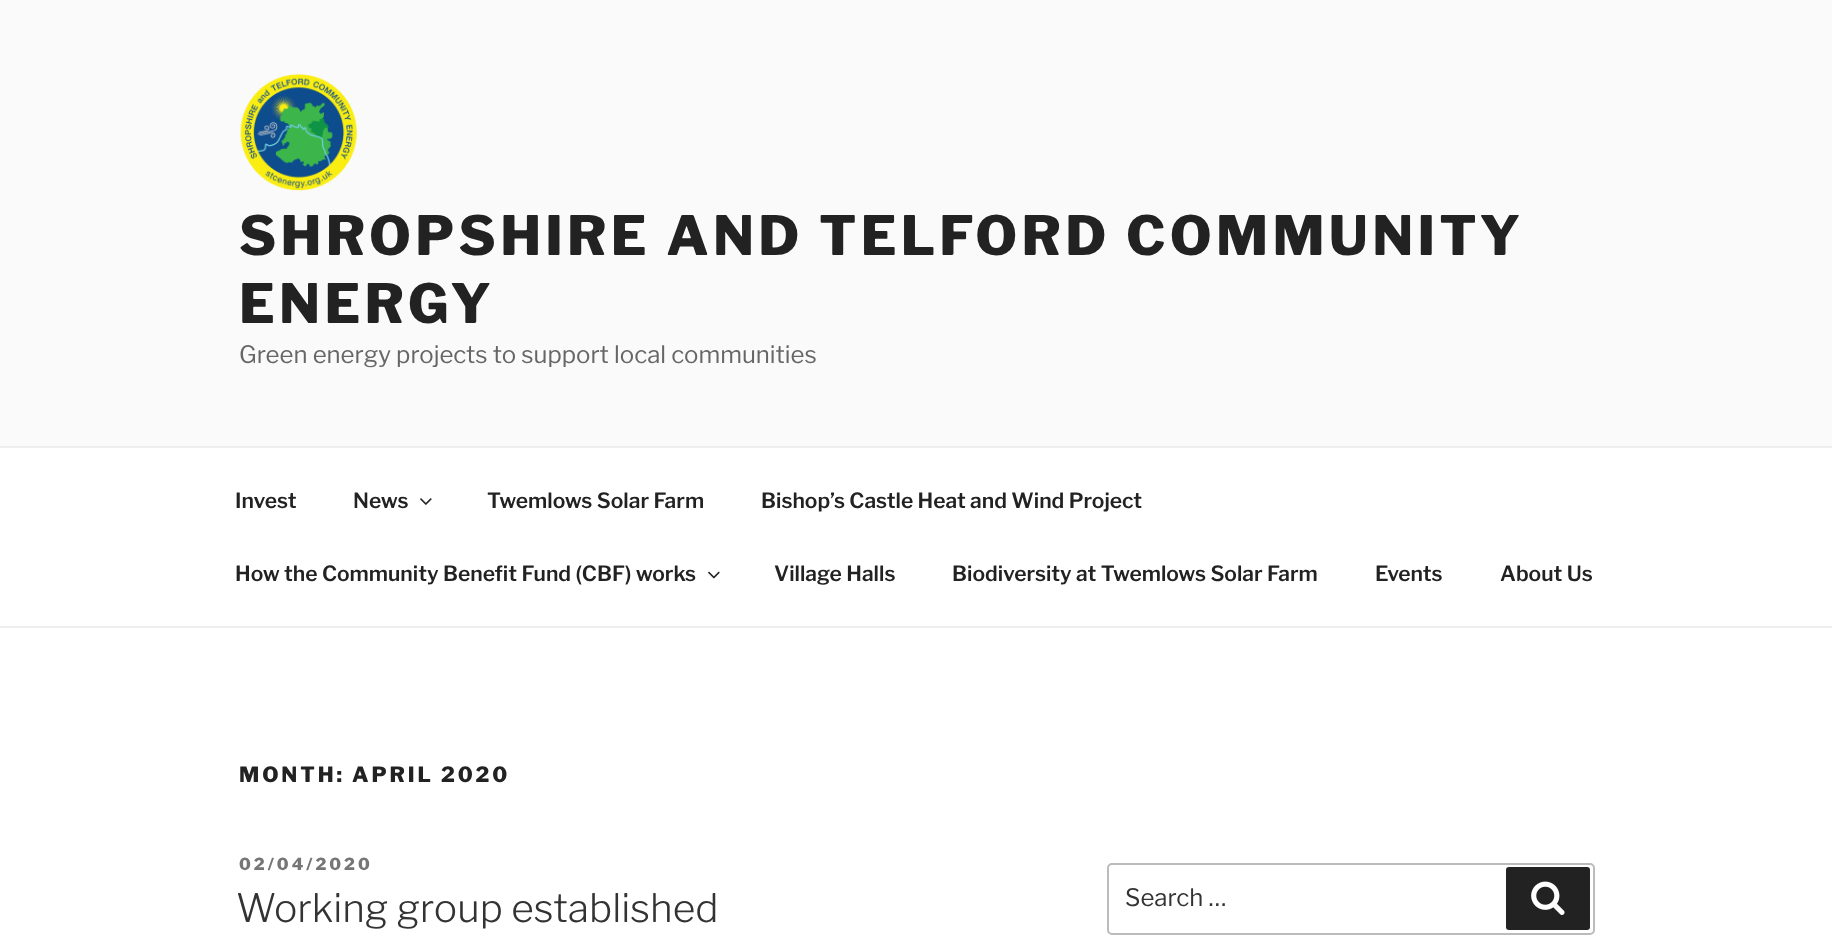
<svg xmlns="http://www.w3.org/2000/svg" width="1832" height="952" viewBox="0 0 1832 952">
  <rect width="100%" height="100%" fill="#fff"/>
  <path d="M0 0h1832v446H0z" fill="#fafafa"/>
  <image x="240" y="73" width="117" height="118" href="img/1.png"/>
  <path d="M0 446h1832v2H0z" fill="#eee"/>
  <path d="M0 626h1832v2H0z" fill="#eee"/>
  <image x="420" y="498" width="12" height="7" href="img/2.png"/>
  <image x="708" y="571" width="12" height="8" href="img/3.png"/>
  <rect x="1108" y="864" width="486" height="70" rx="4" fill="none" stroke="#bbb" stroke-width="2"/>
  <rect x="1506" y="867" width="84" height="63" rx="3" fill="#222"/>
  <image x="1531" y="881" width="34" height="34" href="img/4.png"/>
  <g font-family="Libre Franklin" font-size="54" font-weight="100" letter-spacing="4.3" fill="#222">
    <text x="239" y="255">SHROPSHIRE AND TELFORD COMMUNITY</text>
    <text x="239" y="323">ENERGY</text>
  </g>
  <text x="239" y="363" font-family="'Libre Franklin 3'" font-size="24" font-weight="100" fill="#666">Green energy projects to support local communities</text>
  <g font-family="'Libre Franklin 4'" font-size="21" font-weight="100" fill="#222">
    <text x="235" y="508">Invest</text>
    <text x="353" y="508">News</text>
    <text x="487" y="508">Twemlows Solar Farm</text>
    <text x="761" y="508">Bishop’s Castle Heat and Wind Project</text>
    <text x="235" y="581">How the Community Benefit Fund (CBF) works</text>
    <text x="774" y="581">Village Halls</text>
    <text x="952" y="581">Biodiversity at Twemlows Solar Farm</text>
    <text x="1375" y="581">Events</text>
    <text x="1500" y="581">About Us</text>
  </g>
  <text x="239" y="782" font-family="Libre Franklin" font-size="21" font-weight="100" letter-spacing="2.9" fill="#222">MONTH: APRIL 2020</text>
  <text x="239" y="870" font-family="Libre Franklin" font-size="16.5" font-weight="100" letter-spacing="3" fill="#767676">02/04/2020</text>
  <text x="236" y="922" font-family="'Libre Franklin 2'" font-size="39" font-weight="100" fill="#333">Working group established</text>
  <text x="1125" y="906" font-family="'Libre Franklin 3'" font-size="24" font-weight="100" fill="#333">Search …</text>
</svg>
